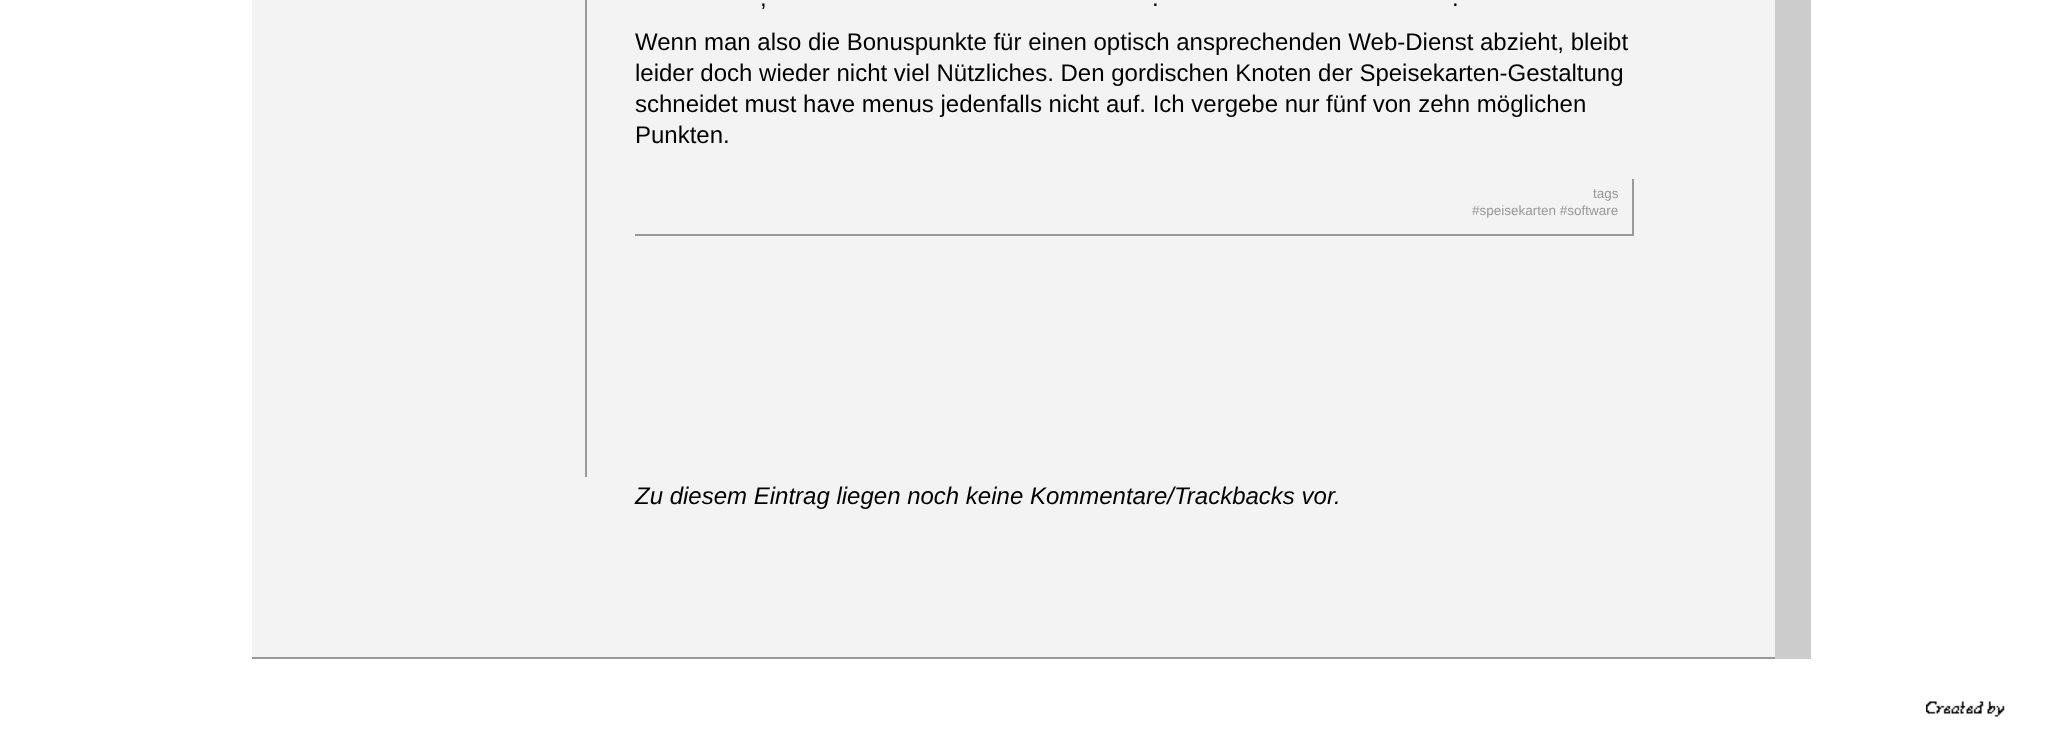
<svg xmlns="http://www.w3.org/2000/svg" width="2054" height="745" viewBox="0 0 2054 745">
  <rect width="100%" height="100%" fill="#fff"/>
  <path d="M1775 0h36v659H1775z" fill="#ccc"/>
  <path d="M252 0h1523v657H252z" fill="#f3f3f3"/>
  <path d="M252 657h1523v2H252z" fill="#999"/>
  <path d="M585 0h2v477H585z" fill="#999"/>
  <path d="M1632 179h2v57H1632z" fill="#999"/>
  <path d="M635 234h999v2H635z" fill="#999"/>
  <image x="1926" y="701" width="79" height="16" href="img/1.png"/>
  <g font-family="Liberation Sans" font-size="24" fill="#000">
    <text x="760" y="6">,</text>
    <text x="1152" y="6">.</text>
    <text x="1452" y="6">.</text>
    <text x="635" y="50">Wenn man also die Bonuspunkte für einen optisch ansprechenden Web-Dienst abzieht, bleibt</text>
    <text x="635" y="81">leider doch wieder nicht viel Nützliches. Den gordischen Knoten der Speisekarten-Gestaltung</text>
    <text x="635" y="112">schneidet must have menus jedenfalls nicht auf. Ich vergebe nur fünf von zehn möglichen</text>
    <text x="635" y="143">Punkten.</text>
  </g>
  <g font-family="Liberation Sans" font-size="13.5" fill="#999">
    <text x="1593" y="198">tags</text>
    <text x="1472" y="215">#speisekarten #software</text>
  </g>
  <text x="635" y="504" font-family="Liberation Sans" font-size="24" font-style="italic" fill="#000">Zu diesem Eintrag liegen noch keine Kommentare/Trackbacks vor.</text>
</svg>
